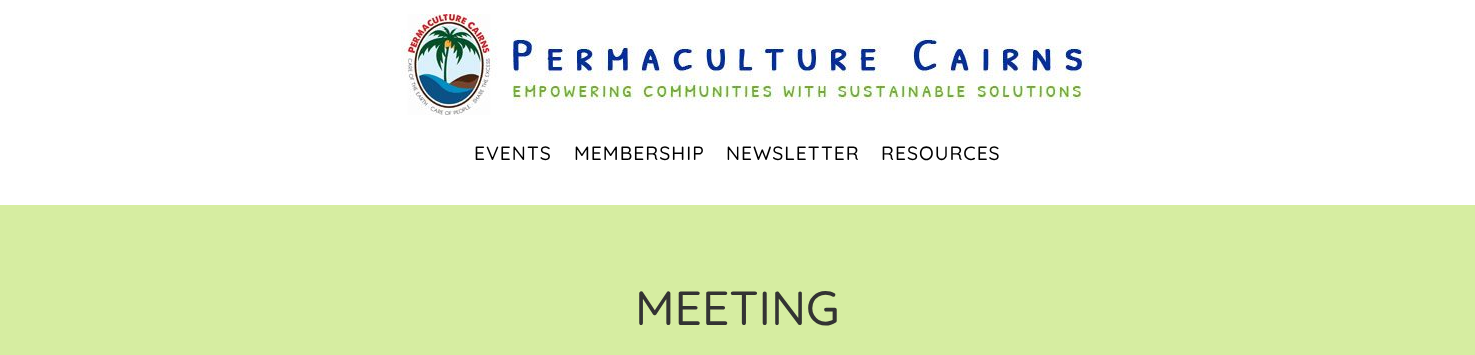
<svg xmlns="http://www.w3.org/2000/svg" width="1475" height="355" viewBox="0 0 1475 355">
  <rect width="100%" height="100%" fill="#fff"/>
  <image x="401" y="14" width="689" height="101" href="img/1.png"/>
  <path d="M0 205h1475v150H0z" fill="#d6eda1"/>
  <g font-family="Quicksand" font-size="19.25" font-weight="500" letter-spacing="1" fill="#000">
    <text x="474" y="160">EVENTS</text>
    <text x="574" y="160">MEMBERSHIP</text>
    <text x="726" y="160">NEWSLETTER</text>
    <text x="881" y="160">RESOURCES</text>
  </g>
  <text x="635" y="325" font-family="Quicksand" font-size="48" font-weight="500" fill="#333">MEETING</text>
</svg>
